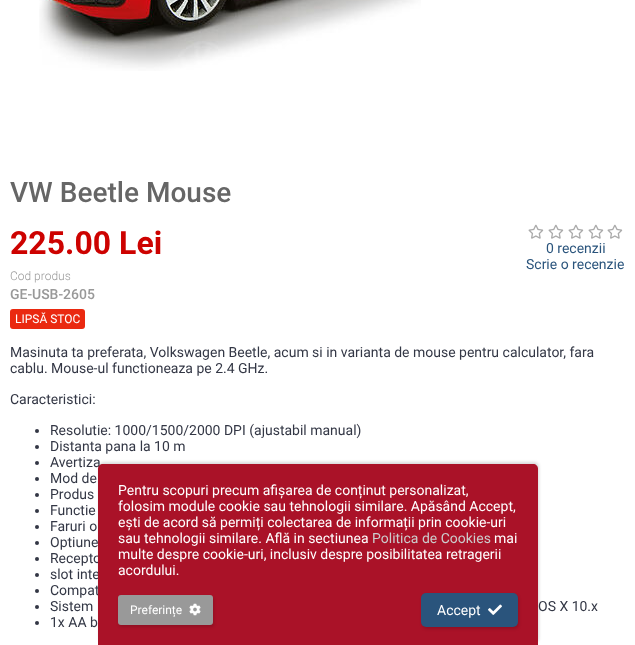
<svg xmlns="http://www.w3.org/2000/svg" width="635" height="645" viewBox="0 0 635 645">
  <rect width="100%" height="100%" fill="#fff"/>
  <image x="39" y="0" width="382" height="71" href="img/1.png"/>
  <rect x="10" y="309" width="75" height="20" rx="3" fill="#ea2910"/>
  <image x="528" y="224" width="16" height="15" href="img/2.png"/>
  <image x="548" y="224" width="16" height="15" href="img/2.png"/>
  <image x="568" y="224" width="16" height="15" href="img/2.png"/>
  <image x="588" y="224" width="16" height="15" href="img/2.png"/>
  <image x="607" y="224" width="16" height="15" href="img/2.png"/>
  <circle cx="37" cy="431" r="2" fill="#333745"/>
  <circle cx="37" cy="447" r="2" fill="#333745"/>
  <circle cx="37" cy="463" r="2" fill="#333745"/>
  <circle cx="37" cy="479" r="2" fill="#333745"/>
  <circle cx="37" cy="495" r="2" fill="#333745"/>
  <circle cx="37" cy="511" r="2" fill="#333745"/>
  <circle cx="37" cy="527" r="2" fill="#333745"/>
  <circle cx="37" cy="543" r="2" fill="#333745"/>
  <circle cx="37" cy="559" r="2" fill="#333745"/>
  <circle cx="37" cy="575" r="2" fill="#333745"/>
  <circle cx="37" cy="591" r="2" fill="#333745"/>
  <circle cx="37" cy="607" r="2" fill="#333745"/>
  <circle cx="37" cy="623" r="2" fill="#333745"/>
  <rect x="99" y="462" width="440" height="181" rx="5" fill="#00000026" filter="blur(1.5px)"/>
  <text x="10" y="202" font-family="Roboto" font-size="28" font-weight="500" fill="#666">VW Beetle Mouse</text>
  <text x="10" y="254" font-family="Roboto" font-size="32" font-weight="bold" fill="#cd0200">225.00 Lei</text>
  <text x="10" y="280" font-family="Roboto" font-size="12" font-weight="300" fill="#999">Cod produs</text>
  <text x="10" y="299" font-family="Roboto" font-size="14" font-weight="500" fill="#999">GE-USB-2605</text>
  <text x="15" y="323" font-family="Roboto" font-size="12" fill="#fff">LIPSĂ STOC</text>
  <g font-family="Roboto" font-size="14" fill="#2a547c">
    <text x="546" y="253">0 recenzii</text>
    <text x="526" y="269">Scrie o recenzie</text>
  </g>
  <g font-family="Roboto" font-size="14" fill="#333745">
    <text x="10" y="357">Masinuta ta preferata, Volkswagen Beetle, acum si in varianta de mouse pentru calculator, fara</text>
    <text x="10" y="373">cablu. Mouse-ul functioneaza pe 2.4 GHz.</text>
    <text x="10" y="404">Caracteristici:</text>
    <text x="50" y="435">Resolutie: 1000/1500/2000 DPI (ajustabil manual)</text>
    <text x="50" y="451">Distanta pana la 10 m</text>
    <text x="50" y="467">Avertiza</text>
    <text x="50" y="483">Mod de</text>
    <text x="50" y="499">Produs</text>
    <text x="50" y="515">Functie</text>
    <text x="50" y="531">Faruri o</text>
    <text x="50" y="547">Optiune</text>
    <text x="50" y="563">Recepto</text>
    <text x="50" y="579">slot inte</text>
    <text x="50" y="595">Compat</text>
    <text x="50" y="611">Sistem</text>
    <text x="538" y="611">OS X 10.x</text>
    <text x="50" y="627">1x AA b</text>
  </g>
  <path d="M103 464H533C536 464 538 466 538 469V645H98V469C98 466 100 464 103 464Z" fill="#aa1228"/>
  <g font-family="Roboto" font-size="14" fill="#fff">
    <text x="118" y="495">Pentru scopuri precum afișarea de conținut personalizat,</text>
    <text x="118" y="511">folosim module cookie sau tehnologii similare. Apăsând Accept,</text>
    <text x="118" y="527">ești de acord să permiți colectarea de informații prin cookie-uri</text>
    <text x="118" y="543">sau tehnologii similare. Află in sectiunea</text>
  </g>
  <text x="372" y="543" font-family="Roboto" font-size="14" fill="#ccc">Politica de Cookies</text>
  <g font-family="Roboto" font-size="14" fill="#fff">
    <text x="494" y="543">mai</text>
    <text x="118" y="559">multe despre cookie-uri, inclusiv despre posibilitatea retragerii</text>
    <text x="118" y="575">acordului.</text>
  </g>
  <rect x="119" y="597" width="95" height="30" rx="3" fill="#00000026" filter="blur(1.5px)"/>
  <rect x="118" y="595" width="95" height="30" rx="3" fill="#999"/>
  <text x="130" y="614" font-family="Roboto" font-size="12" fill="#fff">Preferințe</text>
  <image x="189" y="603" width="12" height="13" href="img/3.png"/>
  <rect x="422" y="595" width="97" height="34" rx="5" fill="#00000026" filter="blur(1.5px)"/>
  <rect x="421" y="593" width="97" height="34" rx="5" fill="#2a547c"/>
  <text x="437" y="615" font-family="Roboto" font-size="14" fill="#fff">Accept</text>
  <image x="488" y="604" width="14" height="11" href="img/4.png"/>
</svg>
